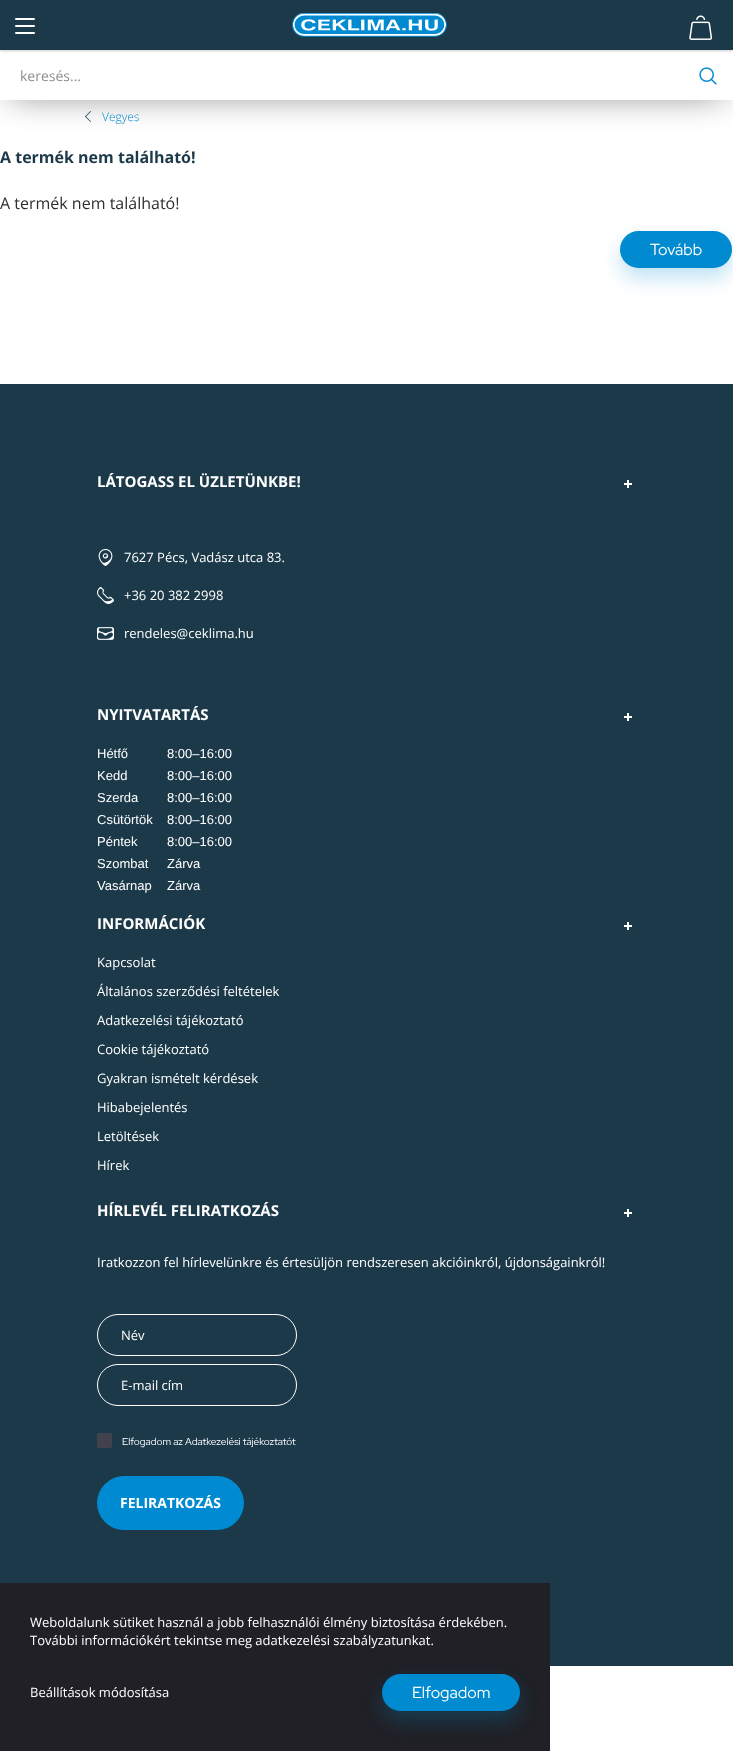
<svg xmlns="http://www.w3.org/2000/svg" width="733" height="1751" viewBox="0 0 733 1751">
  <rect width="100%" height="100%" fill="#fff"/>
  <path d="M91 121.5L90.5 122L85 116.5L85.5 116Z" fill="#1c3949"/>
  <path d="M91 111.5L85.5 117L85 116.5L90.5 111Z" fill="#1c3949"/>
  <path d="M11 66h711v28H11z" fill="#0000008a" filter="blur(17px)"/>
  <path d="M0 50h733v50H0z" fill="#fff"/>
  <path d="M0 1h733v50H0z" fill="#00000033" filter="blur(1.5px)"/>
  <path d="M0 0h733v50H0z" fill="#1c3949"/>
  <rect x="15" y="18" width="20" height="2" rx="1" fill="#fff"/>
  <rect x="15" y="25" width="20" height="2" rx="1" fill="#fff"/>
  <rect x="15" y="32" width="20" height="2" rx="1" fill="#fff"/>
  <image x="292" y="13" width="155" height="24" href="img/1.png"/>
  <image x="689" y="15" width="24" height="25" href="img/2.png"/>
  <image x="699" y="67" width="18" height="18" href="img/3.png"/>
  <rect x="620" y="241" width="112" height="37" rx="18.5" fill="#008bd140" filter="blur(10px)"/>
  <rect x="620" y="231" width="112" height="37" rx="18.5" fill="#008bd1"/>
  <path d="M0 384h733v1282H0z" fill="#1c3949"/>
  <path d="M627 480h2v8H627z" fill="#fff"/>
  <path d="M624 483h8v2H624z" fill="#fff"/>
  <image x="98" y="549" width="15" height="17" href="img/4.png"/>
  <image x="97" y="587" width="17" height="17" href="img/5.png"/>
  <image x="97" y="627" width="17" height="13" href="img/6.png"/>
  <path d="M627 713h2v8H627z" fill="#fff"/>
  <path d="M624 716h8v2H624z" fill="#fff"/>
  <path d="M627 922h2v8H627z" fill="#fff"/>
  <path d="M624 925h8v2H624z" fill="#fff"/>
  <path d="M627 1209h2v8H627z" fill="#fff"/>
  <path d="M624 1212h8v2H624z" fill="#fff"/>
  <rect x="97.5" y="1314.5" width="199" height="41" rx="20.5" fill="none" stroke="#fff"/>
  <rect x="97.5" y="1364.5" width="199" height="41" rx="20.5" fill="none" stroke="#fff"/>
  <rect x="97" y="1433" width="15" height="15" rx="2" fill="#42424f"/>
  <rect x="97" y="1476" width="147" height="54" rx="27" fill="#008ad1"/>
  <path d="M0 1583h550v168H0z" fill="#202026"/>
  <rect x="382" y="1684" width="138" height="37" rx="18.5" fill="#008bd140" filter="blur(10px)"/>
  <rect x="382" y="1674" width="138" height="37" rx="18.5" fill="#008bd1"/>
  <text x="20" y="81" font-family="Open Sans" font-size="14" fill="#8e8e8e">keresés...</text>
  <text x="102" y="121" font-family="Open Sans" font-size="12" font-weight="300" fill="#008ad1">Vegyes</text>
  <text x="0" y="163" font-family="Open Sans" font-size="16" font-weight="bold" fill="#1c3949">A termék nem található!</text>
  <text x="0" y="209" font-family="Open Sans" font-size="16" fill="#2e2e2e">A termék nem található!</text>
  <text x="650" y="255" font-family="Red Hat Display" font-size="16" fill="#fff">Tovább</text>
  <text x="97" y="487" font-family="Open Sans" font-size="15" font-weight="bold" fill="#fff">LÁTOGASS EL ÜZLETÜNKBE!</text>
  <g font-family="Open Sans" font-size="13" fill="#fff">
    <text x="124" y="562">7627 Pécs, Vadász utca 83.</text>
    <text x="124" y="600">+36 20 382 2998</text>
    <text x="124" y="638">rendeles@ceklima.hu</text>
  </g>
  <text x="97" y="720" font-family="Open Sans" font-size="15" font-weight="bold" fill="#fff">NYITVATARTÁS</text>
  <g font-family="Liberation Sans" font-size="13" fill="#fff">
    <text x="97" y="758">Hétfő</text>
    <text x="167" y="758">8:00–16:00</text>
    <text x="97" y="780">Kedd</text>
    <text x="167" y="780">8:00–16:00</text>
    <text x="97" y="802">Szerda</text>
    <text x="167" y="802">8:00–16:00</text>
    <text x="97" y="824">Csütörtök</text>
    <text x="167" y="824">8:00–16:00</text>
    <text x="97" y="846">Péntek</text>
    <text x="167" y="846">8:00–16:00</text>
    <text x="97" y="868">Szombat</text>
    <text x="167" y="868">Zárva</text>
    <text x="97" y="890">Vasárnap</text>
    <text x="167" y="890">Zárva</text>
  </g>
  <text x="97" y="929" font-family="Open Sans" font-size="15" font-weight="bold" fill="#fff">INFORMÁCIÓK</text>
  <g font-family="Open Sans" font-size="13" fill="#fff">
    <text x="97" y="967">Kapcsolat</text>
    <text x="97" y="996">Általános szerződési feltételek</text>
    <text x="97" y="1025">Adatkezelési tájékoztató</text>
    <text x="97" y="1054">Cookie tájékoztató</text>
    <text x="97" y="1083">Gyakran ismételt kérdések</text>
    <text x="97" y="1112">Hibabejelentés</text>
    <text x="97" y="1141">Letöltések</text>
    <text x="97" y="1170">Hírek</text>
  </g>
  <text x="97" y="1216" font-family="Open Sans" font-size="15" font-weight="bold" fill="#fff">HÍRLEVÉL FELIRATKOZÁS</text>
  <g font-family="Open Sans" font-size="13" fill="#fff">
    <text x="97" y="1267">Iratkozzon fel hírlevelünkre és értesüljön rendszeresen akcióinkról, újdonságainkról!</text>
    <text x="121" y="1340">Név</text>
    <text x="121" y="1390">E-mail cím</text>
  </g>
  <text x="122" y="1445" font-family="Red Hat Display" font-size="10" fill="#fff">Elfogadom az Adatkezelési tájékoztatót</text>
  <text x="120" y="1508" font-family="Open Sans" font-size="14" font-weight="bold" fill="#fff">FELIRATKOZÁS</text>
  <g font-family="Open Sans" font-size="13" fill="#fff">
    <text x="30" y="1627">Weboldalunk sütiket használ a jobb felhasználói élmény biztosítása érdekében.</text>
    <text x="30" y="1645">További információkért tekintse meg adatkezelési szabályzatunkat.</text>
    <text x="30" y="1697">Beállítások módosítása</text>
  </g>
  <text x="412" y="1698" font-family="Red Hat Display" font-size="16" fill="#fff">Elfogadom</text>
</svg>
